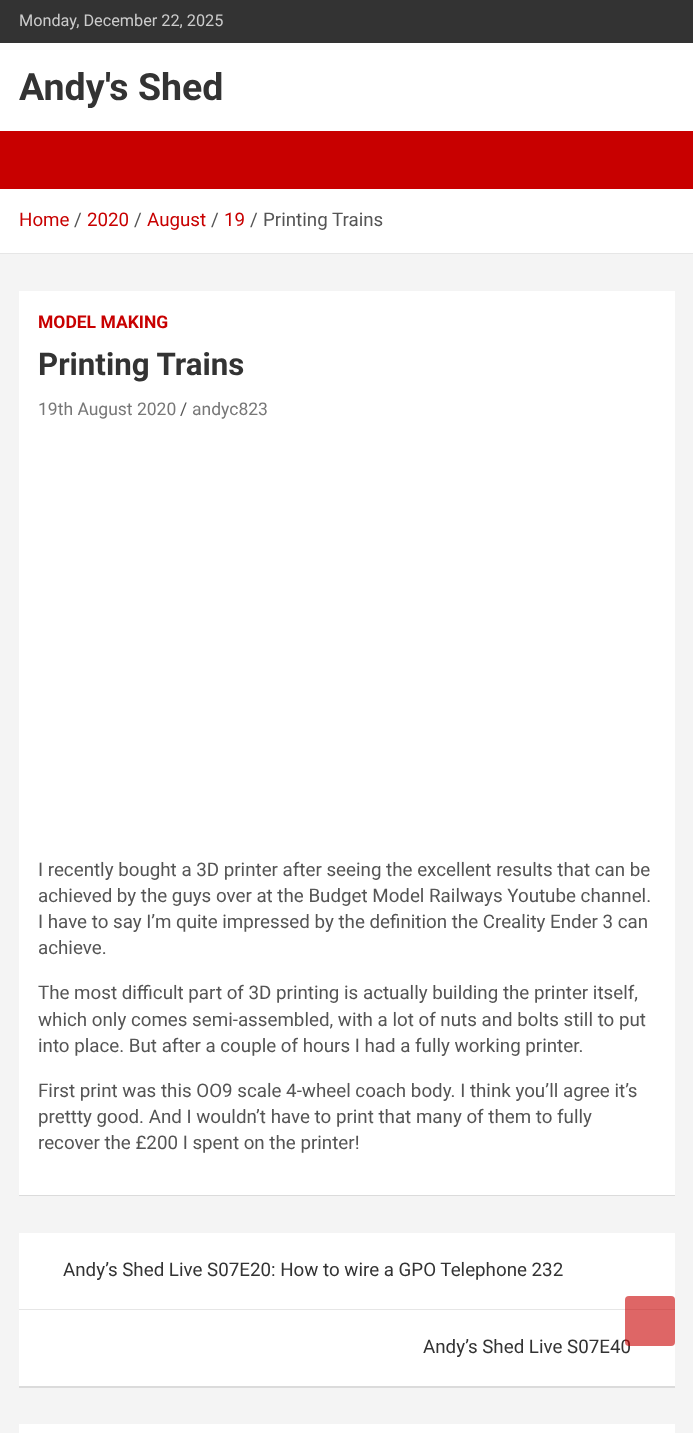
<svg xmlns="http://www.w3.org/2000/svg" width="693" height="1433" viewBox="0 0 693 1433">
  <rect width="100%" height="100%" fill="#f4f4f4"/>
  <path d="M0 0h693v43H0z" fill="#333"/>
  <path d="M0 43h693v88H0z" fill="#fff"/>
  <path d="M0 131h693v58H0z" fill="#c80000"/>
  <path d="M0 189h693v64H0z" fill="#fff"/>
  <path d="M0 253h693v1H0z" fill="#e6e6e6"/>
  <path d="M19 293h656v903H19z" fill="#0000001a" filter="blur(0.5px)"/>
  <path d="M19 291h656v904H19z" fill="#fff"/>
  <path d="M19 1234h656v154H19z" fill="#0000001a" filter="blur(0.5px)"/>
  <path d="M19 1233h656v153H19z" fill="#fff"/>
  <path d="M19 1309h656v1H19z" fill="#e6e6e6"/>
  <path d="M19 1424h656v9H19z" fill="#fff"/>
  <text x="19" y="26" font-family="Roboto" font-size="16.25" fill="#ccc">Monday, December 22, 2025</text>
  <text x="19" y="100" font-family="Roboto" font-size="37.5" font-weight="bold" fill="#333">Andy's Shed</text>
  <text x="19" y="226" font-family="Roboto" font-size="18.75" fill="#c80000">Home</text>
  <text x="74" y="226" font-family="Roboto" font-size="18.75" fill="#555">/</text>
  <text x="87" y="226" font-family="Roboto" font-size="18.75" fill="#c80000">2020</text>
  <text x="134" y="226" font-family="Roboto" font-size="18.75" fill="#555">/</text>
  <text x="147" y="226" font-family="Roboto" font-size="18.75" fill="#c80000">August</text>
  <text x="211" y="226" font-family="Roboto" font-size="18.75" fill="#555">/</text>
  <text x="224" y="226" font-family="Roboto" font-size="18.75" fill="#c80000">19</text>
  <g font-family="Roboto" font-size="18.75" fill="#555">
    <text x="250" y="226">/</text>
    <text x="263" y="226">Printing Trains</text>
  </g>
  <text x="38" y="328" font-family="Roboto" font-size="17.5" font-weight="bold" fill="#c80000">MODEL MAKING</text>
  <text x="38" y="375" font-family="Roboto" font-size="31.25" font-weight="bold" fill="#333">Printing Trains</text>
  <text x="38" y="415" font-family="Roboto" font-size="17.5" fill="#777">19th August 2020</text>
  <text x="180" y="415" font-family="Roboto" font-size="17.5" fill="#555">/</text>
  <text x="192" y="415" font-family="Roboto" font-size="17.5" fill="#777">andyc823</text>
  <g font-family="Roboto" font-size="18.75" fill="#555">
    <text x="38" y="876">I recently bought a 3D printer after seeing the excellent results that can be</text>
    <text x="38" y="902">achieved by the guys over at the Budget Model Railways Youtube channel.</text>
    <text x="38" y="928">I have to say I’m quite impressed by the definition the Creality Ender 3 can</text>
    <text x="38" y="954">achieve.</text>
    <text x="38" y="999">The most difficult part of 3D printing is actually building the printer itself,</text>
    <text x="38" y="1026">which only comes semi-assembled, with a lot of nuts and bolts still to put</text>
    <text x="38" y="1052">into place. But after a couple of hours I had a fully working printer.</text>
    <text x="38" y="1097">First print was this OO9 scale 4-wheel coach body. I think you’ll agree it’s</text>
    <text x="38" y="1123">prettty good. And I wouldn’t have to print that many of them to fully</text>
    <text x="38" y="1149">recover the £200 I spent on the printer!</text>
  </g>
  <g font-family="Roboto" font-size="18.75" fill="#333">
    <text x="63" y="1276">Andy’s Shed Live S07E20: How to wire a GPO Telephone 232</text>
    <text x="423" y="1353">Andy’s Shed Live S07E40</text>
  </g>
  <rect x="625" y="1296" width="50" height="50" rx="4" fill="#c8000099"/>
</svg>
